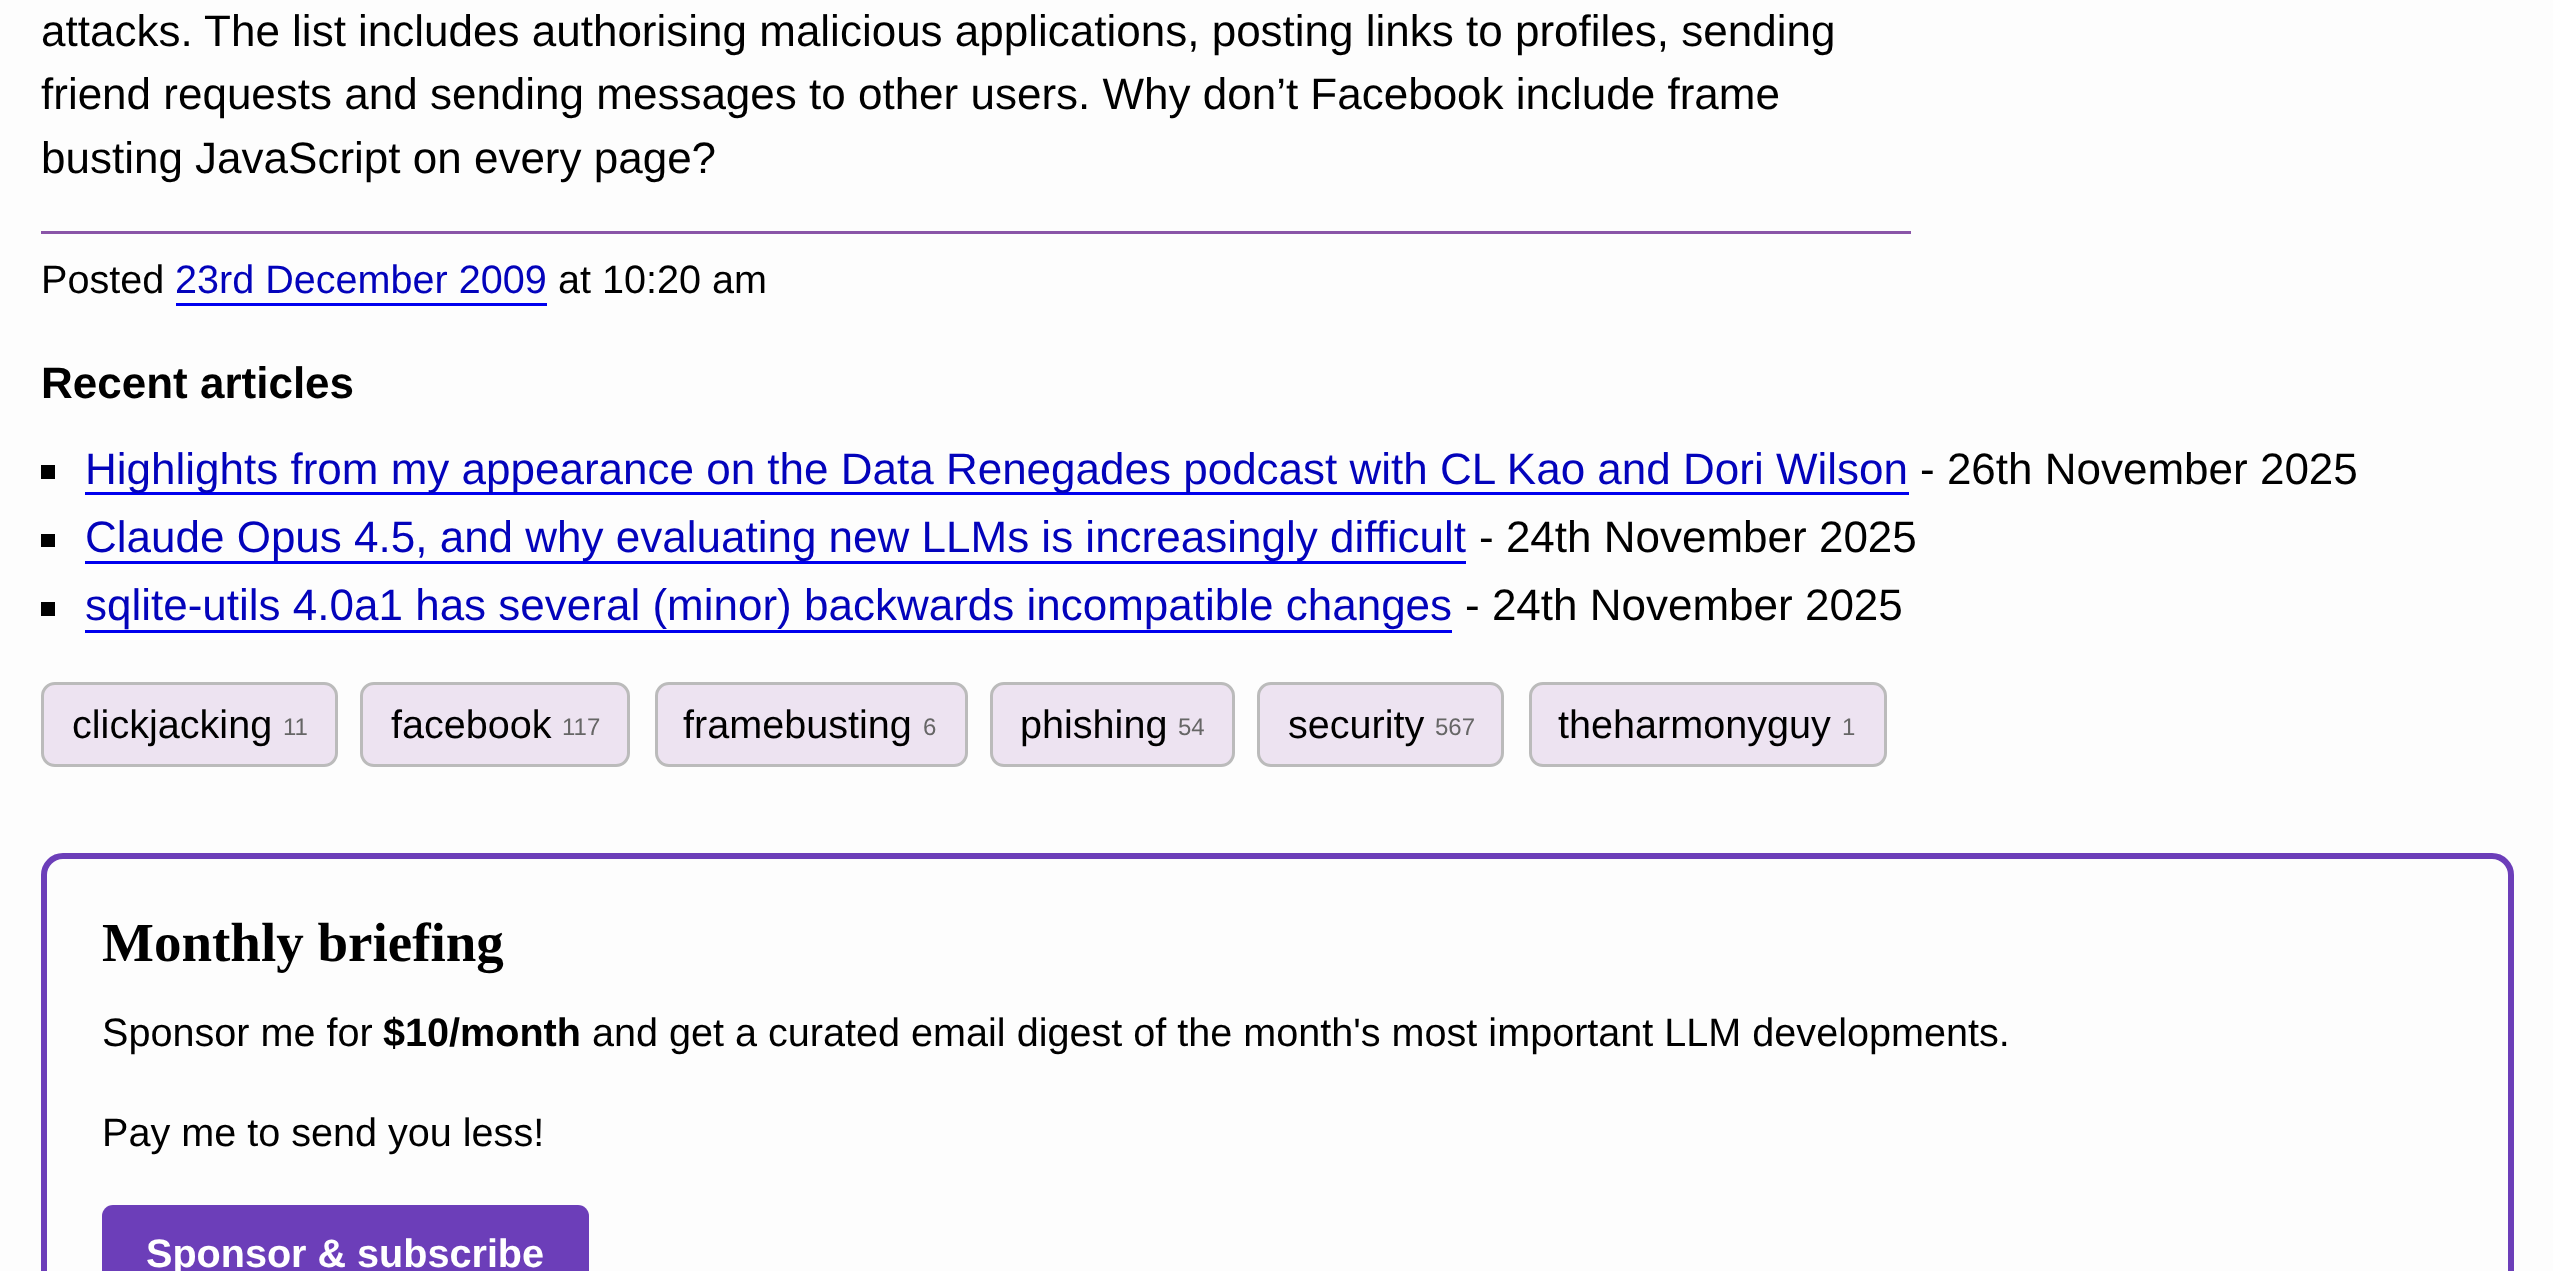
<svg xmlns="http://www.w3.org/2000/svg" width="2553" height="1271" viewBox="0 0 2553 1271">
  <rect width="100%" height="100%" fill="#fdfdfd"/>
  <path d="M41 231h1870v3H41z" fill="#8a55a8"/>
  <path d="M176 303h371v3H176z" fill="#00e"/>
  <path d="M41 465h14v14H41z" fill="#000"/>
  <path d="M85 492h1824v3H85z" fill="#00e"/>
  <path d="M41 534h14v13H41z" fill="#000"/>
  <path d="M85 561h1381v3H85z" fill="#00e"/>
  <path d="M41 602h14v14H41z" fill="#000"/>
  <path d="M85 630h1367v3H85z" fill="#00e"/>
  <rect x="42.5" y="683.5" width="294" height="82" rx="12.5" fill="#ede3f1" stroke="#bbb" stroke-width="3"/>
  <rect x="361.5" y="683.5" width="267" height="82" rx="12.5" fill="#ede3f1" stroke="#bbb" stroke-width="3"/>
  <rect x="656.5" y="683.5" width="310" height="82" rx="12.5" fill="#ede3f1" stroke="#bbb" stroke-width="3"/>
  <rect x="991.5" y="683.5" width="242" height="82" rx="12.5" fill="#ede3f1" stroke="#bbb" stroke-width="3"/>
  <rect x="1258.5" y="683.5" width="244" height="82" rx="12.5" fill="#ede3f1" stroke="#bbb" stroke-width="3"/>
  <rect x="1530.5" y="683.5" width="355" height="82" rx="12.5" fill="#ede3f1" stroke="#bbb" stroke-width="3"/>
  <rect x="44" y="856" width="2467" height="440" rx="19" fill="none" stroke="#6c3eb9" stroke-width="6"/>
  <rect x="102" y="1205" width="487" height="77" rx="11" fill="#6c3eb9"/>
  <g font-family="Liberation Sans" font-size="44" fill="#000">
    <text x="41" y="46">attacks. The list includes authorising malicious applications, posting links to profiles, sending</text>
    <text x="41" y="109">friend requests and sending messages to other users. Why don’t Facebook include frame</text>
    <text x="41" y="173">busting JavaScript on every page?</text>
  </g>
  <text x="41" y="293" font-family="Liberation Sans" font-size="39.6" fill="#000">Posted</text>
  <text x="175" y="293" font-family="Liberation Sans" font-size="39.6" fill="#0303bb">23rd December 2009</text>
  <text x="558" y="293" font-family="Liberation Sans" font-size="39.6" fill="#000">at 10:20 am</text>
  <text x="41" y="398" font-family="Liberation Sans" font-size="44" font-weight="bold" fill="#000">Recent articles</text>
  <text x="85" y="484" font-family="Liberation Sans" font-size="44" fill="#0303bb">Highlights from my appearance on the Data Renegades podcast with CL Kao and Dori Wilson</text>
  <text x="1920" y="484" font-family="Liberation Sans" font-size="44" fill="#000">- 26th November 2025</text>
  <text x="85" y="552" font-family="Liberation Sans" font-size="44" fill="#0303bb">Claude Opus 4.5, and why evaluating new LLMs is increasingly difficult</text>
  <text x="1479" y="552" font-family="Liberation Sans" font-size="44" fill="#000">- 24th November 2025</text>
  <text x="85" y="620" font-family="Liberation Sans" font-size="44" fill="#0303bb">sqlite-utils 4.0a1 has several (minor) backwards incompatible changes</text>
  <text x="1465" y="620" font-family="Liberation Sans" font-size="44" fill="#000">- 24th November 2025</text>
  <text x="72" y="738" font-family="Liberation Sans" font-size="39.6" fill="#000">clickjacking</text>
  <text x="283" y="735" font-family="Liberation Sans" font-size="24" fill="#666">11</text>
  <text x="391" y="738" font-family="Liberation Sans" font-size="39.6" fill="#000">facebook</text>
  <text x="562" y="735" font-family="Liberation Sans" font-size="24" fill="#666">117</text>
  <text x="683" y="738" font-family="Liberation Sans" font-size="39.6" fill="#000">framebusting</text>
  <text x="923" y="735" font-family="Liberation Sans" font-size="24" fill="#666">6</text>
  <text x="1020" y="738" font-family="Liberation Sans" font-size="39.6" fill="#000">phishing</text>
  <text x="1178" y="735" font-family="Liberation Sans" font-size="24" fill="#666">54</text>
  <text x="1288" y="738" font-family="Liberation Sans" font-size="39.6" fill="#000">security</text>
  <text x="1435" y="735" font-family="Liberation Sans" font-size="24" fill="#666">567</text>
  <text x="1558" y="738" font-family="Liberation Sans" font-size="39.6" fill="#000">theharmonyguy</text>
  <text x="1842" y="735" font-family="Liberation Sans" font-size="24" fill="#666">1</text>
  <text x="102" y="961" font-family="Liberation Serif" font-size="55" font-weight="bold" fill="#000">Monthly briefing</text>
  <text x="102" y="1046" font-family="Liberation Sans" font-size="39.6" fill="#000">Sponsor me for</text>
  <text x="383" y="1046" font-family="Liberation Sans" font-size="39.6" font-weight="bold" fill="#000">$10/month</text>
  <g font-family="Liberation Sans" font-size="39.6" fill="#000">
    <text x="592" y="1046">and get a curated email digest of the month's most important LLM developments.</text>
    <text x="102" y="1146">Pay me to send you less!</text>
  </g>
  <text x="146" y="1267" font-family="Liberation Sans" font-size="39.6" font-weight="bold" fill="#fff">Sponsor &amp; subscribe</text>
</svg>
